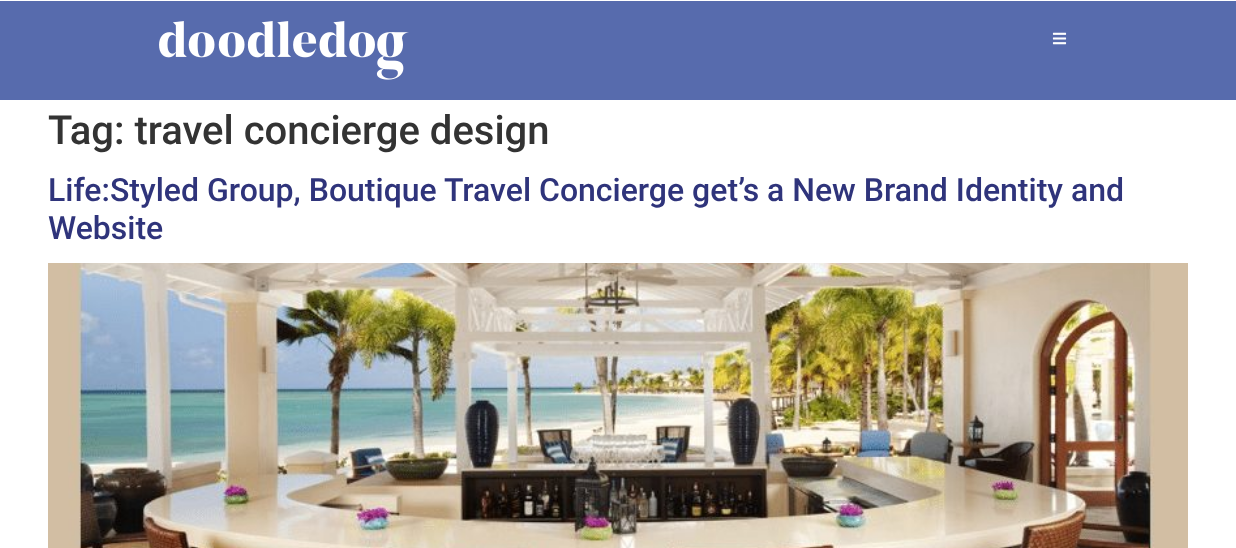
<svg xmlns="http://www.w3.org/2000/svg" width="1236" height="548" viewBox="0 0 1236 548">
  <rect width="100%" height="100%" fill="#fff"/>
  <path d="M0 1h1236v99H0z" fill="#576bad"/>
  <image x="159" y="21" width="250" height="59" href="img/1.png"/>
  <image x="1052" y="32" width="15" height="13" href="img/2.png"/>
  <image x="48" y="263" width="1140" height="285" href="img/3.png"/>
  <text x="48" y="144" font-family="Roboto" font-size="40" font-weight="500" fill="#333">Tag: travel concierge design</text>
  <g font-family="Roboto" font-size="32" font-weight="500" fill="#2f347b">
    <text x="48" y="201">Life:Styled Group, Boutique Travel Concierge get’s a New Brand Identity and</text>
    <text x="48" y="239">Website</text>
  </g>
</svg>
